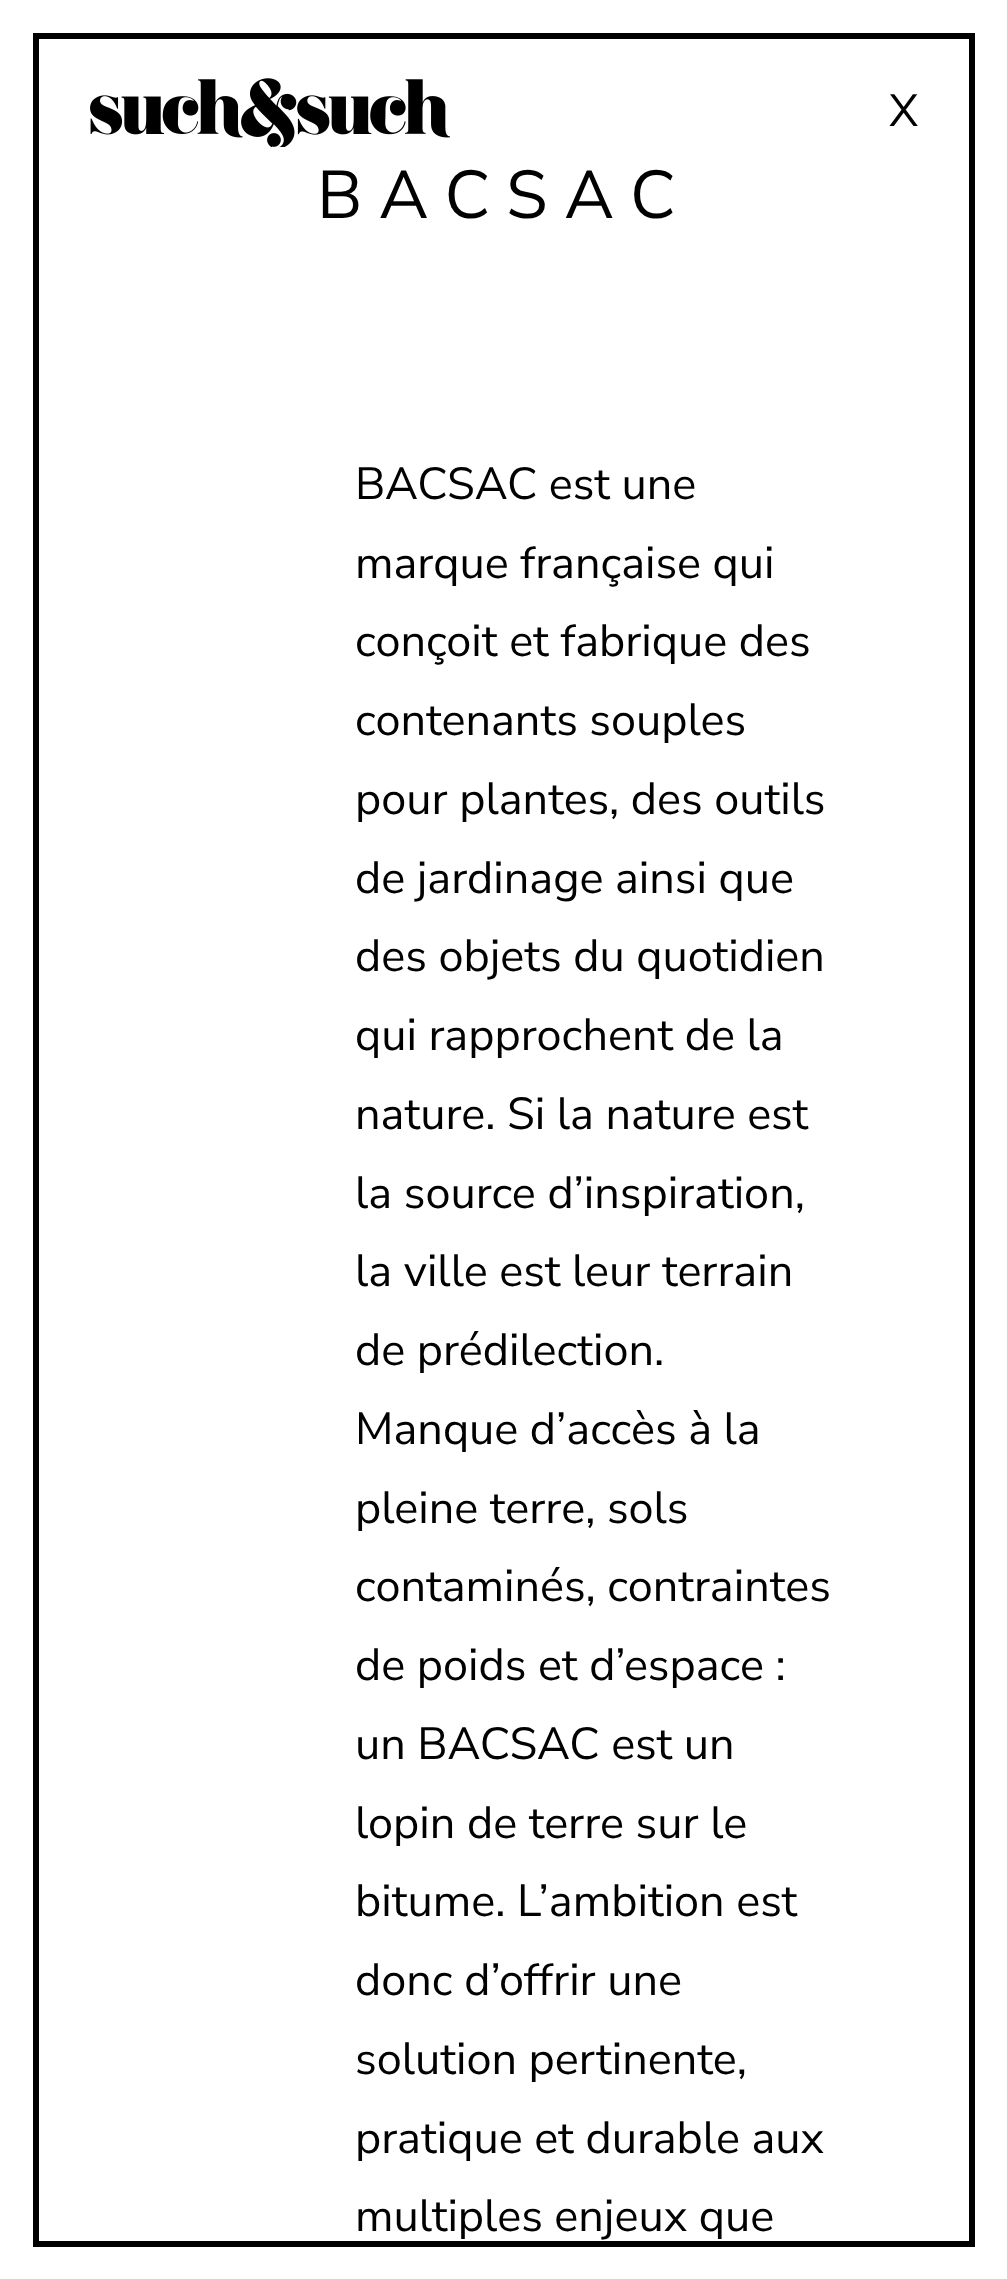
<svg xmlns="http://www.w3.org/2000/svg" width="1007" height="2279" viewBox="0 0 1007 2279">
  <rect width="100%" height="100%" fill="#fff"/>
  <path d="M36 36h936v2208H36z" fill="none" stroke="#000" stroke-width="6"/>
  <image x="90" y="78" width="360" height="69" href="img/1.png"/>
  <text x="889" y="126" font-family="Nunito Sans" font-size="45" fill="#000">X</text>
  <text x="317" y="218" font-family="Nunito Sans" font-size="67.5" letter-spacing="17" fill="#000">BACSAC</text>
  <g font-family="Nunito Sans" font-size="45" fill="#000">
    <text x="355" y="499">BACSAC est une</text>
    <text x="355" y="578">marque française qui</text>
    <text x="355" y="656">conçoit et fabrique des</text>
    <text x="355" y="735">contenants souples</text>
    <text x="355" y="814">pour plantes, des outils</text>
    <text x="355" y="893">de jardinage ainsi que</text>
    <text x="355" y="971">des objets du quotidien</text>
    <text x="355" y="1050">qui rapprochent de la</text>
    <text x="355" y="1129">nature. Si la nature est</text>
    <text x="355" y="1208">la source d’inspiration,</text>
    <text x="355" y="1286">la ville est leur terrain</text>
    <text x="355" y="1365">de prédilection.</text>
    <text x="355" y="1444">Manque d’accès à la</text>
    <text x="355" y="1523">pleine terre, sols</text>
    <text x="355" y="1601">contaminés, contraintes</text>
    <text x="355" y="1680">de poids et d’espace :</text>
    <text x="355" y="1759">un BACSAC est un</text>
    <text x="355" y="1838">lopin de terre sur le</text>
    <text x="355" y="1916">bitume. L’ambition est</text>
    <text x="355" y="1995">donc d’offrir une</text>
    <text x="355" y="2074">solution pertinente,</text>
    <text x="355" y="2153">pratique et durable aux</text>
    <text x="355" y="2231">multiples enjeux que</text>
  </g>
</svg>
